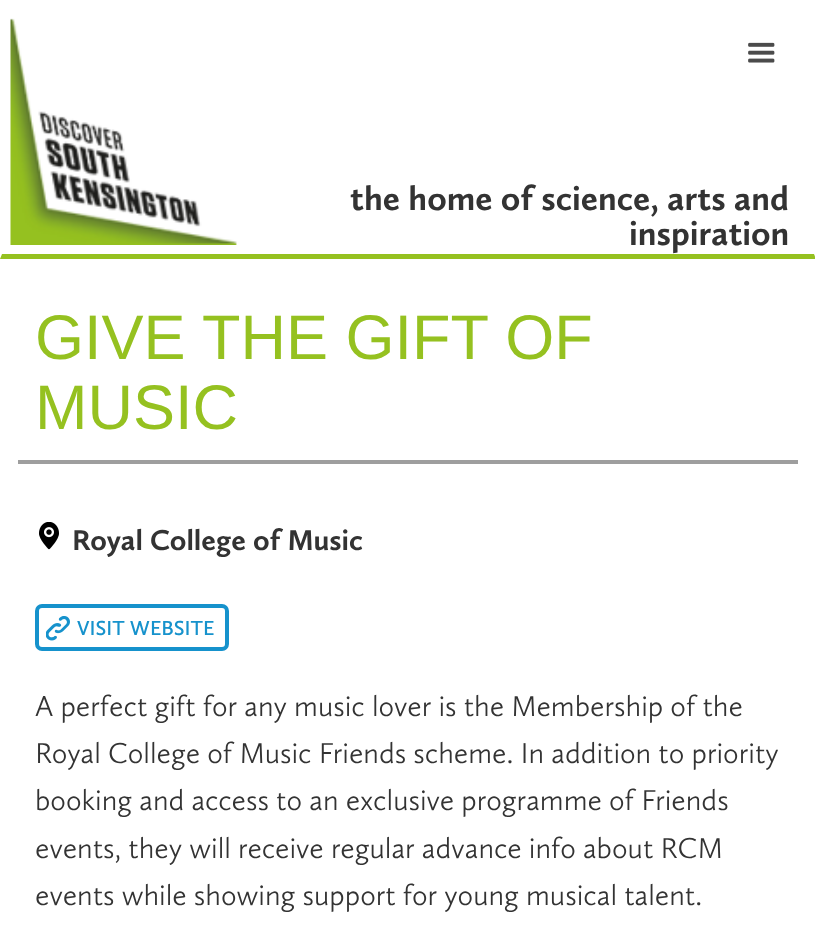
<svg xmlns="http://www.w3.org/2000/svg" width="815" height="944" viewBox="0 0 815 944">
  <rect width="100%" height="100%" fill="#fff"/>
  <path d="M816 259H0L2 254H814Z" fill="#95c120"/>
  <image x="10" y="18" width="227" height="227" href="img/1.png"/>
  <image x="748" y="42" width="27" height="21" href="img/2.png"/>
  <path d="M18 460h780v4H18z" fill="#9e9e9e"/>
  <image x="39" y="522" width="20" height="28" href="img/3.png"/>
  <image x="46" y="616" width="24" height="25" href="img/4.png"/>
  <rect x="37" y="606" width="190" height="43" rx="5" fill="none" stroke="#1692cc" stroke-width="4"/>
  <g font-family="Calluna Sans" font-size="35" font-weight="bold" fill="#333">
    <text x="350" y="210">the home of science, arts and</text>
    <text x="629" y="245">inspiration</text>
  </g>
  <g font-family="Liberation Sans" font-size="63" fill="#95c120">
    <text x="35" y="359">GIVE THE GIFT OF</text>
    <text x="35" y="429">MUSIC</text>
  </g>
  <text x="72" y="550" font-family="Calluna Sans" font-size="29.75" font-weight="bold" fill="#333">Royal College of Music</text>
  <text x="77" y="635" font-family="Calluna Sans" font-size="21" font-weight="600" fill="#1692cc">VISIT WEBSITE</text>
  <g font-family="Calluna Sans" font-size="29.75" font-weight="300" fill="#333">
    <text x="35" y="716">A perfect gift for any music lover is the Membership of the</text>
    <text x="35" y="763">Royal College of Music Friends scheme. In addition to priority</text>
    <text x="35" y="810">booking and access to an exclusive programme of Friends</text>
    <text x="35" y="858">events, they will receive regular advance info about RCM</text>
    <text x="35" y="905">events while showing support for young musical talent.</text>
  </g>
</svg>
